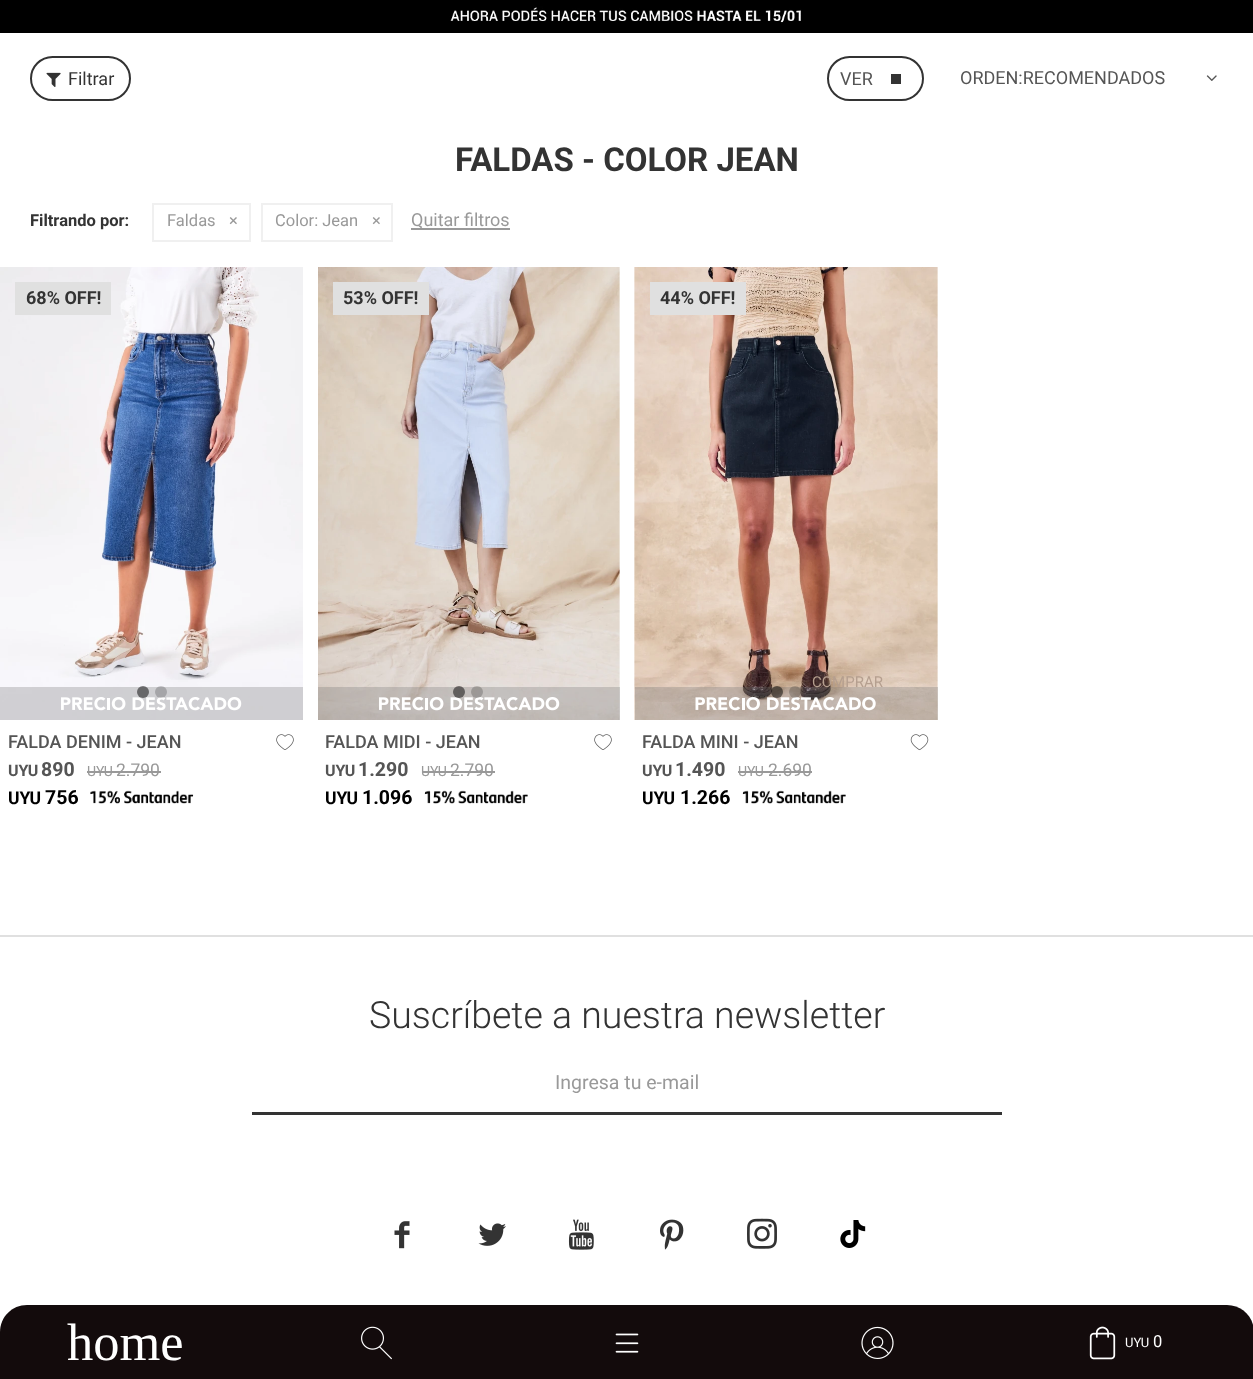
<svg xmlns="http://www.w3.org/2000/svg" width="1253" height="1379" viewBox="0 0 1253 1379">
  <rect width="100%" height="100%" fill="#fff"/>
  <image x="0" y="0" width="1253" height="33" href="img/1.png"/>
  <rect x="31" y="57" width="99" height="43" rx="21.5" fill="none" stroke="#333" stroke-width="2"/>
  <image x="46" y="72" width="15" height="15" href="img/2.png"/>
  <rect x="828" y="57" width="95" height="43" rx="21.5" fill="none" stroke="#333" stroke-width="2"/>
  <path d="M891 74h10v10H891z" fill="#333"/>
  <image x="1206" y="75" width="11" height="6" href="img/3.png"/>
  <path d="M153 204h97v37H153z" fill="none" stroke="#f0f0f0" stroke-width="2"/>
  <path d="M262 204h130v37H262z" fill="none" stroke="#f0f0f0" stroke-width="2"/>
  <path d="M411 228h99v2H411z" fill="#999"/>
  <image x="0" y="267" width="303" height="453" href="img/4.png"/>
  <path d="M15 282h96v33H15z" fill="#e0e0e0"/>
  <image x="0" y="687" width="303" height="33" href="img/5.png"/>
  <circle cx="143" cy="692" r="6" fill="#00000080"/>
  <circle cx="161" cy="692" r="6" fill="#00000033"/>
  <image x="276" y="734" width="18" height="16" href="img/6.png"/>
  <path d="M87 771h74v2H87z" fill="#999"/>
  <image x="90" y="790" width="104" height="14" href="img/7.png"/>
  <image x="318" y="267" width="302" height="453" href="img/8.png"/>
  <path d="M333 282h96v33H333z" fill="#e0e0e0"/>
  <image x="619" y="267" width="1" height="453" href="img/9.png"/>
  <image x="318" y="687" width="302" height="33" href="img/10.png"/>
  <circle cx="459" cy="692" r="6" fill="#00000080"/>
  <circle cx="477" cy="692" r="6" fill="#00000033"/>
  <image x="594" y="734" width="18" height="16" href="img/6.png"/>
  <path d="M422 771h73v2H422z" fill="#999"/>
  <image x="424" y="790" width="104" height="14" href="img/11.png"/>
  <image x="634" y="267" width="304" height="453" href="img/12.png"/>
  <image x="634" y="267" width="304" height="453" href="img/13.png"/>
  <path d="M650 282h96v33H650z" fill="#e0e0e0"/>
  <image x="635" y="687" width="303" height="33" href="img/14.png"/>
  <circle cx="777" cy="692" r="6" fill="#00000080"/>
  <circle cx="795" cy="692" r="6" fill="#00000033"/>
  <image x="910" y="734" width="19" height="17" href="img/15.png"/>
  <path d="M738 771h74v2H738z" fill="#999"/>
  <image x="742" y="790" width="104" height="14" href="img/11.png"/>
  <path d="M0 935h1253v2H0z" fill="#e0e0e0"/>
  <path d="M252 1112h750v3H252z" fill="#333"/>
  <image x="394" y="1221" width="16" height="28" href="img/16.png"/>
  <image x="478" y="1223" width="28" height="23" href="img/17.png"/>
  <image x="568" y="1219" width="26" height="31" href="img/18.png"/>
  <image x="660" y="1219" width="24" height="31" href="img/19.png"/>
  <image x="747" y="1218" width="30" height="31" href="img/20.png"/>
  <image x="840" y="1220" width="26" height="28" href="img/21.png"/>
  <path d="M27 1305H1227C1242 1305 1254 1317 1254 1332V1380H0V1332C0 1317 12 1305 27 1305Z" fill="#130b0c"/>
  <image x="361" y="1326" width="31" height="34" href="img/22.png"/>
  <image x="615" y="1333" width="24" height="20" href="img/23.png"/>
  <image x="861" y="1326" width="33" height="33" href="img/24.png"/>
  <image x="1089" y="1326" width="27" height="34" href="img/25.png"/>
  <text x="68" y="85" font-family="Roboto" font-size="18" fill="#333">Filtrar</text>
  <g font-family="Roboto" font-size="18" fill="#555">
    <text x="840" y="85">VER</text>
    <text x="960" y="84">ORDEN:RECOMENDADOS</text>
  </g>
  <text x="455" y="171" font-family="Roboto" font-size="33" font-weight="bold" fill="#333">FALDAS - COLOR JEAN</text>
  <text x="30" y="226" font-family="Roboto" font-size="16.5" font-weight="bold" fill="#333">Filtrando por:</text>
  <g font-family="Roboto" font-size="16.5" fill="#999">
    <text x="167" y="226">Faldas</text>
    <text x="229" y="226">×</text>
    <text x="275" y="226">Color: Jean</text>
    <text x="372" y="226">×</text>
  </g>
  <text x="411" y="226" font-family="Roboto" font-size="18" fill="#999">Quitar filtros</text>
  <text x="26" y="304" font-family="Roboto" font-size="18" font-weight="bold" fill="#333">68% OFF!</text>
  <text x="8" y="748" font-family="Roboto" font-size="18" font-weight="500" fill="#555">FALDA DENIM - JEAN</text>
  <text x="8" y="776" font-family="Roboto" font-size="16" font-weight="bold" fill="#555">UYU</text>
  <text x="41" y="776" font-family="Roboto" font-size="19.5" font-weight="bold" fill="#555">890</text>
  <text x="87" y="776" font-family="Roboto" font-size="14" fill="#999">UYU</text>
  <text x="116" y="776" font-family="Roboto" font-size="17.5" fill="#999">2.790</text>
  <text x="8" y="804" font-family="Roboto" font-size="17.5" font-weight="bold" fill="#000">UYU</text>
  <text x="45" y="804" font-family="Roboto" font-size="19.5" font-weight="bold" fill="#000">756</text>
  <text x="343" y="304" font-family="Roboto" font-size="18" font-weight="bold" fill="#333">53% OFF!</text>
  <text x="325" y="748" font-family="Roboto" font-size="18" font-weight="500" fill="#555">FALDA MIDI - JEAN</text>
  <text x="325" y="776" font-family="Roboto" font-size="16" font-weight="bold" fill="#555">UYU</text>
  <text x="358" y="776" font-family="Roboto" font-size="19.5" font-weight="bold" fill="#555">1.290</text>
  <text x="421" y="776" font-family="Roboto" font-size="14" fill="#999">UYU</text>
  <text x="450" y="776" font-family="Roboto" font-size="17.5" fill="#999">2.790</text>
  <text x="325" y="804" font-family="Roboto" font-size="17.5" font-weight="bold" fill="#000">UYU</text>
  <text x="362" y="804" font-family="Roboto" font-size="19.5" font-weight="bold" fill="#000">1.096</text>
  <text x="660" y="304" font-family="Roboto" font-size="18" font-weight="bold" fill="#333">44% OFF!</text>
  <text x="812" y="687" font-family="Roboto" font-size="15" fill="#b59f8f">COMPRAR</text>
  <text x="642" y="748" font-family="Roboto" font-size="18" font-weight="500" fill="#555">FALDA MINI - JEAN</text>
  <text x="642" y="776" font-family="Roboto" font-size="16" font-weight="bold" fill="#555">UYU</text>
  <text x="675" y="776" font-family="Roboto" font-size="19.5" font-weight="bold" fill="#555">1.490</text>
  <text x="738" y="776" font-family="Roboto" font-size="14" fill="#999">UYU</text>
  <text x="768" y="776" font-family="Roboto" font-size="17.5" fill="#999">2.690</text>
  <text x="642" y="804" font-family="Roboto" font-size="17.5" font-weight="bold" fill="#000">UYU</text>
  <text x="680" y="804" font-family="Roboto" font-size="19.5" font-weight="bold" fill="#000">1.266</text>
  <text x="369" y="1028" font-family="Roboto" font-size="37.5" font-weight="300" fill="#333">Suscríbete a nuestra newsletter</text>
  <text x="555" y="1089" font-family="Roboto" font-size="19.5" fill="#999">Ingresa tu e-mail</text>
  <text x="67" y="1360" font-family="Liberation Serif" font-size="52.5" fill="#fff">home</text>
  <text x="1125" y="1347" font-family="Roboto" font-size="13" fill="#fff">UYU</text>
  <text x="1153" y="1347" font-family="Roboto" font-size="16.5" fill="#fff">0</text>
</svg>
